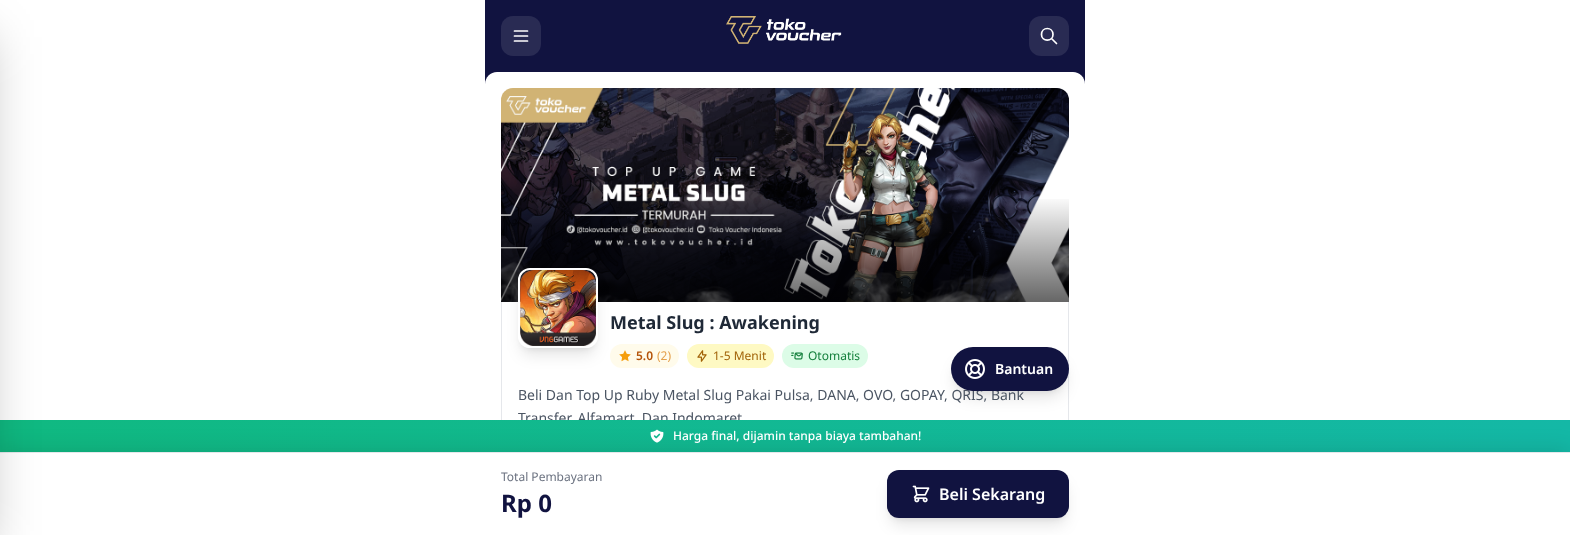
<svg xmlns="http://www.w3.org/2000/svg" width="1570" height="535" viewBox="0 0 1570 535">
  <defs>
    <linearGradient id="g1" gradientUnits="userSpaceOnUse" x1="785" y1="302" x2="785" y2="88"><stop offset="0" stop-color="#000" stop-opacity="0.6"/><stop offset="0.5" stop-color="#000" stop-opacity="0"/><stop offset="1" stop-color="#000" stop-opacity="0"/></linearGradient>
    <clipPath id="clip1"><path d="M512 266H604V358H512ZM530 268H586C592.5 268 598 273.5 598 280V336C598 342.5 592.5 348 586 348H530C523.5 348 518 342.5 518 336V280C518 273.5 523.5 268 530 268Z" clip-rule="evenodd"/></clipPath>
    <clipPath id="clip2"><path d="M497 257H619V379H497ZM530 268H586C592.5 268 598 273.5 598 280V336C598 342.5 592.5 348 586 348H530C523.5 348 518 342.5 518 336V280C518 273.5 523.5 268 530 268Z" clip-rule="evenodd"/></clipPath>
    <linearGradient id="g2" gradientUnits="userSpaceOnUse" x1="0" y1="436" x2="1570" y2="436"><stop offset="0" stop-color="#10b981"/><stop offset="1" stop-color="#14b8a6"/></linearGradient>
  </defs>
  <rect width="100%" height="100%" fill="#fff"/>
  <path d="M485 0h600v84H485z" fill="#111340"/>
  <path d="M497 72H1073C1079.5 72 1085 77.5 1085 84V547H485V84C485 77.5 490.5 72 497 72Z" fill="#fff"/>
  <image x="501" y="88" width="568" height="214" href="img/1.png"/>
  <path d="M501 199h568v103H501z" fill="url(#g1)"/>
  <path d="M501 302H1069V497C1069 506 1062 513 1053 513H517C508 513 501 506 501 497ZM502 302H1068V497C1068 505 1061 512 1053 512H517C509 512 502 505 502 497Z" fill="#e5e7eb" fill-rule="evenodd"/>
  <g clip-path="url(#clip1)">
    <rect x="522" y="276" width="72" height="72" rx="8" fill="#0000001a" filter="blur(3px)"/>
  </g>
  <rect x="610" y="344" width="69" height="24" rx="12" fill="#fffbeb"/>
  <g clip-path="url(#clip2)">
    <rect x="521" y="281" width="74" height="74" rx="9" fill="#0000001a" filter="blur(7.5px)"/>
  </g>
  <rect x="519" y="269" width="78" height="78" rx="11" fill="none" stroke="#fff" stroke-width="2"/>
  <image x="520" y="270" width="76" height="76" href="img/2.png"/>
  <image x="619" y="350" width="12" height="12" href="img/3.png"/>
  <rect x="687" y="344" width="87" height="24" rx="12" fill="#fef9c3"/>
  <image x="697" y="350" width="10" height="12" href="img/4.png"/>
  <rect x="782" y="344" width="86" height="24" rx="12" fill="#dcfce7"/>
  <image x="791" y="352" width="12" height="8" href="img/5.png"/>
  <rect x="501" y="16" width="40" height="40" rx="12" fill="#292b53"/>
  <path d="M514.5 31H527.5M514.5 36H527.5M514.5 41H527.5" fill="none" stroke="#fff" stroke-width="1.7" stroke-linecap="round" stroke-linejoin="round"/>
  <image x="726" y="16" width="116" height="28" href="img/8.png"/>
  <rect x="1029" y="16" width="40" height="40" rx="12" fill="#292b53"/>
  <path d="M1056.5 43.5L1051.5 38.5M1053 34.5C1053 42 1041.5 42 1041.5 34.5C1041.5 26.5 1053 26.5 1053 34.5Z" fill="none" stroke="#fff" stroke-width="1.7" stroke-linecap="round" stroke-linejoin="round"/>
  <rect x="955" y="355" width="110" height="36" rx="18" fill="#0000001a" filter="blur(3px)"/>
  <rect x="954" y="360" width="112" height="38" rx="19" fill="#0000001a" filter="blur(7.5px)"/>
  <text x="610" y="329" font-family="Noto Sans" font-size="18" font-weight="bold" fill="#1f2937">Metal Slug : Awakening</text>
  <text x="636" y="360" font-family="Noto Sans" font-size="12" font-weight="600" fill="#b45309">5.0</text>
  <text x="657" y="360" font-family="Noto Sans" font-size="12" fill="#e49f4b">(2)</text>
  <text x="713" y="360" font-family="Noto Sans" font-size="12" fill="#a16207">1-5 Menit</text>
  <text x="808" y="360" font-family="Noto Sans" font-size="12" fill="#15803d">Otomatis</text>
  <g font-family="Noto Sans" font-size="14" fill="#4b5563">
    <text x="518" y="400">Beli Dan Top Up Ruby Metal Slug Pakai Pulsa, DANA, OVO, GOPAY, QRIS, Bank</text>
    <text x="518" y="423">Transfer, Alfamart, Dan Indomaret</text>
  </g>
  <path d="M0 420h1570v32H0z" fill="url(#g2)"/>
  <path d="M0 448h1570v83H0z" fill="#0000001a" filter="blur(10px)"/>
  <image x="650" y="429" width="14" height="14" href="img/6.png"/>
  <text x="673" y="440" font-family="Noto Sans" font-size="12" font-weight="500" fill="#fff">Harga final, dijamin tanpa biaya tambahan!</text>
  <path d="M0 453h1570v82H0z" fill="#fff"/>
  <path d="M0 452h1570v1H0z" fill="#e5e7eb"/>
  <text x="501" y="481" font-family="Noto Sans" font-size="12" fill="#6b7280">Total Pembayaran</text>
  <text x="501" y="512" font-family="Noto Sans" font-size="24" font-weight="bold" fill="#111340">Rp 0</text>
  <rect x="891" y="478" width="174" height="40" rx="8" fill="#0000001a" filter="blur(3px)"/>
  <rect x="890" y="483" width="176" height="42" rx="9" fill="#0000001a" filter="blur(7.5px)"/>
  <rect x="887" y="470" width="182" height="48" rx="12" fill="#111340"/>
  <image x="912" y="485" width="18" height="18" href="img/7.png"/>
  <text x="939" y="500" font-family="Noto Sans" font-size="16" font-weight="600" fill="#fff">Beli Sekarang</text>
  <path d="M-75 37h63v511H-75z" fill="#00000040" filter="blur(25px)"/>
  <rect x="951" y="347" width="118" height="44" rx="22" fill="#111340"/>
  <image x="965" y="359" width="20" height="20" href="img/9.png"/>
  <text x="995" y="374" font-family="Noto Sans" font-size="14" font-weight="600" fill="#fff">Bantuan</text>
</svg>
